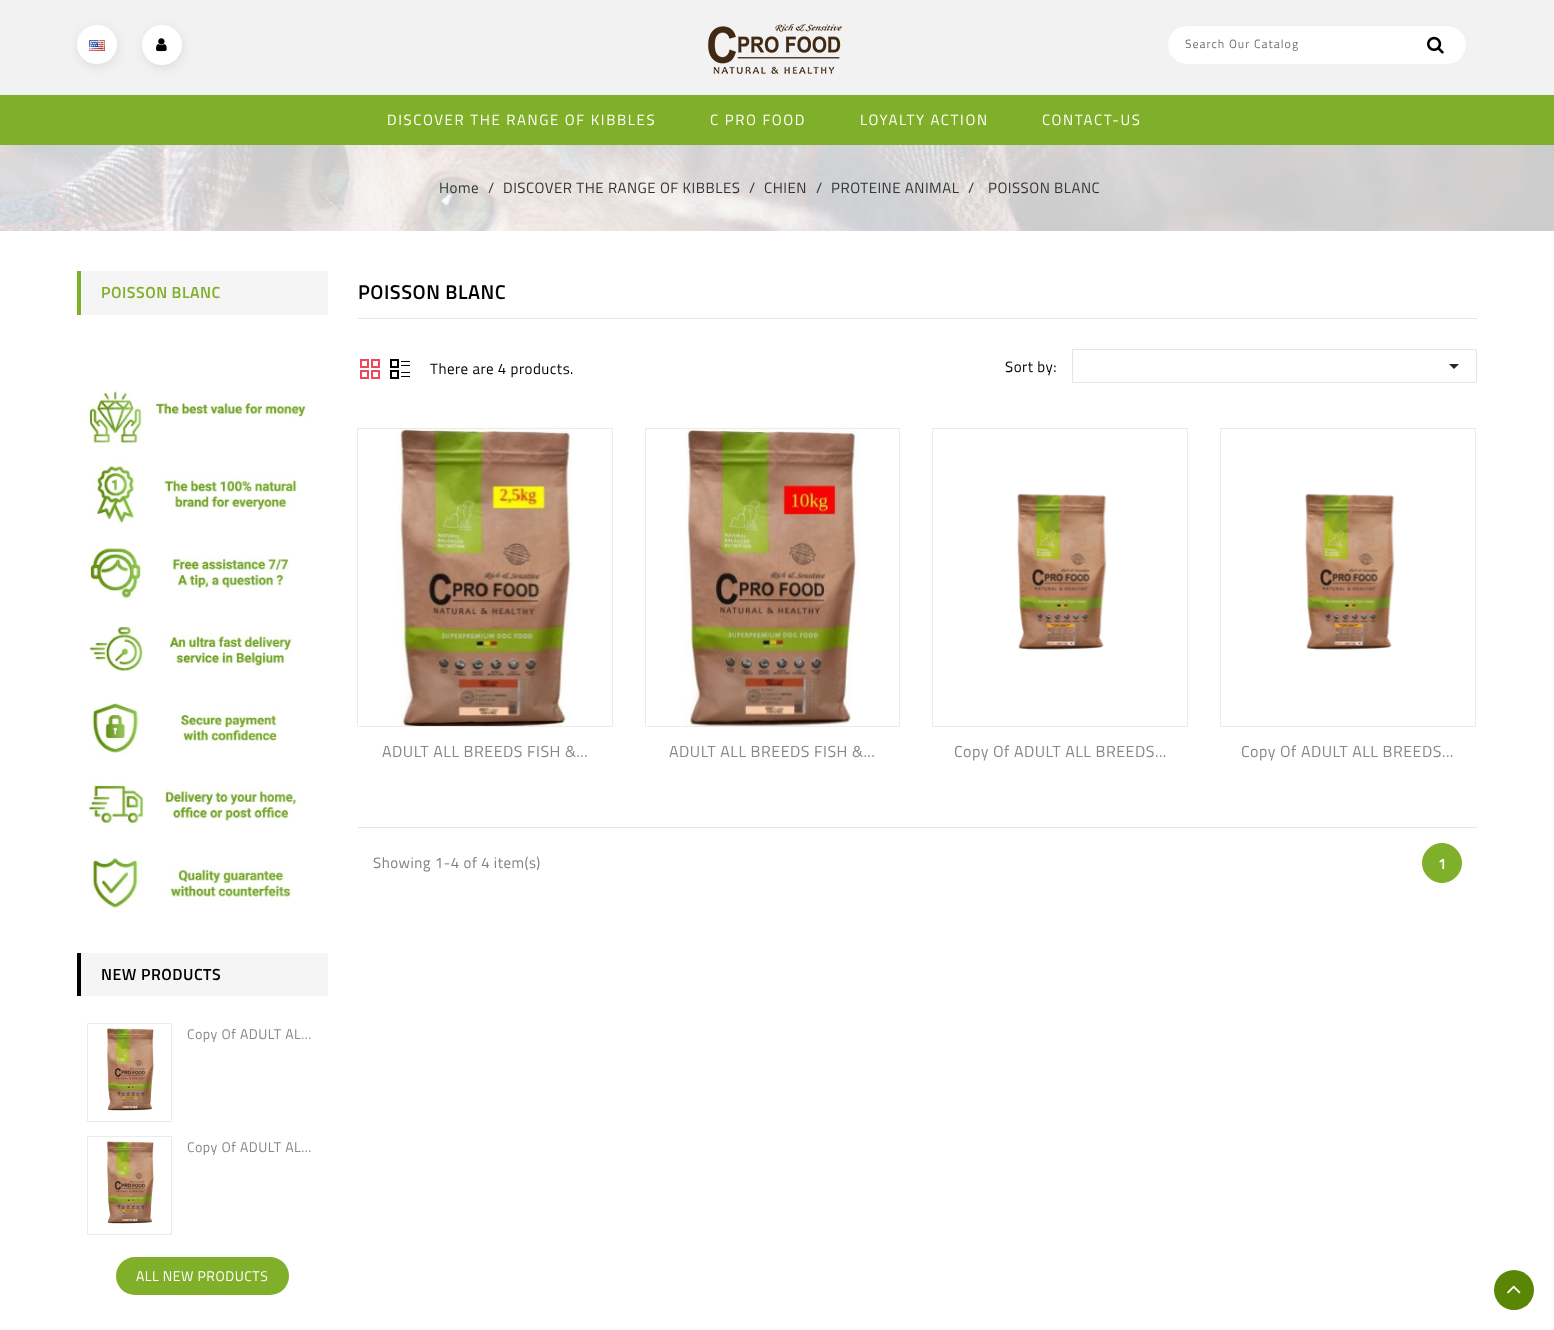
<svg xmlns="http://www.w3.org/2000/svg" width="1554" height="1330" viewBox="0 0 1554 1330">
  <rect width="100%" height="100%" fill="#fff"/>
  <path d="M0 0h1554v95H0z" fill="#f2f2f2"/>
  <rect x="78" y="28" width="40" height="39" rx="19.5" fill="#ddd" filter="blur(5px)"/>
  <rect x="77" y="25" width="40" height="39" rx="19.5" fill="#fff"/>
  <image x="89" y="40" width="16" height="11" href="img/1.png"/>
  <rect x="143" y="28" width="40" height="40" rx="20" fill="#ddd" filter="blur(5px)"/>
  <circle cx="162" cy="45" r="20" fill="#fff"/>
  <image x="156" y="38" width="11" height="14" href="img/2.png"/>
  <image x="708" y="24" width="134" height="50" href="img/3.png"/>
  <rect x="1167.5" y="25.5" width="299" height="39" rx="19.5" fill="#fff" stroke="#f0f0f0"/>
  <image x="1427" y="36" width="17" height="18" href="img/4.png"/>
  <path d="M0 95h1554v50H0z" fill="#80af29"/>
  <image x="0" y="145" width="1554" height="86" href="img/5.png"/>
  <path d="M81 271h247v44H81z" fill="#f5f5f5"/>
  <path d="M77 271h4v44H77z" fill="#80af29"/>
  <image x="84" y="390" width="224" height="54" href="img/6.png"/>
  <image x="92" y="462" width="206" height="63" href="img/7.png"/>
  <image x="88" y="547" width="203" height="53" href="img/8.png"/>
  <image x="88" y="625" width="205" height="47" href="img/9.png"/>
  <image x="92" y="703" width="186" height="52" href="img/10.png"/>
  <image x="87" y="781" width="213" height="44" href="img/11.png"/>
  <image x="92" y="858" width="201" height="51" href="img/12.png"/>
  <path d="M81 953h247v43H81z" fill="#f5f5f5"/>
  <path d="M77 953h4v43H77z" fill="#000"/>
  <path d="M87.5 1023.5h84v98H87.5z" fill="none" stroke="#ebebeb"/>
  <image x="107" y="1028" width="47" height="83" href="img/13.png"/>
  <path d="M87.5 1136.5h84v98H87.5z" fill="none" stroke="#ebebeb"/>
  <image x="107" y="1141" width="47" height="83" href="img/13.png"/>
  <rect x="116" y="1257" width="173" height="38" rx="19" fill="#80af29"/>
  <path d="M358 318h1119v1H358z" fill="#e5e5e5"/>
  <image x="360" y="359" width="20" height="20" href="img/14.png"/>
  <image x="390" y="359" width="20" height="20" href="img/15.png"/>
  <path d="M1072.5 349.5h404v33H1072.5z" fill="none" stroke="#e5e5e5"/>
  <path d="M1449 364H1459L1454 369Z" fill="#262626"/>
  <path d="M357.5 428.5h255v298H357.5z" fill="none" stroke="#ebebeb"/>
  <image x="396" y="429" width="177" height="297" href="img/16.png"/>
  <path d="M645.5 428.5h254v298H645.5z" fill="none" stroke="#ebebeb"/>
  <image x="681" y="429" width="179" height="297" href="img/17.png"/>
  <path d="M932.5 428.5h255v298H932.5z" fill="none" stroke="#ebebeb"/>
  <image x="1017" y="493" width="90" height="157" href="img/18.png"/>
  <path d="M1220.5 428.5h255v298H1220.5z" fill="none" stroke="#ebebeb"/>
  <image x="1305" y="493" width="90" height="157" href="img/18.png"/>
  <path d="M358 827h1119v1H358z" fill="#e5e5e5"/>
  <circle cx="1442" cy="863" r="19.5" fill="#80af29" stroke="#80af29"/>
  <circle cx="1514" cy="1290" r="20" fill="#598705"/>
  <image x="1507" y="1285" width="14" height="9" href="img/19.png"/>
  <text x="1185" y="48" font-family="Titillium Web" font-size="12" letter-spacing="1" fill="#757575">Search Our Catalog</text>
  <g font-family="Titillium Web" font-size="15" letter-spacing="1.6" fill="#fff">
    <text x="387" y="125">DISCOVER THE RANGE OF KIBBLES</text>
    <text x="710" y="125">C PRO FOOD</text>
    <text x="860" y="125">LOYALTY ACTION</text>
    <text x="1042" y="125">CONTACT-US</text>
  </g>
  <g font-family="Titillium Web" font-size="15" letter-spacing="0.5" fill="#333">
    <text x="439" y="193">Home</text>
    <text x="488" y="193">/</text>
    <text x="503" y="193">DISCOVER THE RANGE OF KIBBLES</text>
    <text x="749" y="193">/</text>
    <text x="764" y="193">CHIEN</text>
    <text x="816" y="193">/</text>
    <text x="831" y="193">PROTEINE ANIMAL</text>
    <text x="968" y="193">/</text>
    <text x="988" y="193">POISSON BLANC</text>
  </g>
  <text x="101" y="298" font-family="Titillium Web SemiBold" font-size="16" font-weight="600" letter-spacing="0.5" fill="#80af29">POISSON BLANC</text>
  <text x="101" y="980" font-family="Titillium Web SemiBold" font-size="16" font-weight="600" letter-spacing="0.5" fill="#000">NEW PRODUCTS</text>
  <g font-family="Titillium Web" font-size="14" letter-spacing="0.5" fill="#888">
    <text x="187" y="1039">Copy Of ADULT AL…</text>
    <text x="187" y="1152">Copy Of ADULT AL…</text>
  </g>
  <text x="136" y="1281" font-family="Titillium Web" font-size="14" letter-spacing="0.5" fill="#fff">ALL NEW PRODUCTS</text>
  <text x="358" y="299" font-family="Titillium Web SemiBold" font-size="20" font-weight="600" letter-spacing="0.5" fill="#000">POISSON BLANC</text>
  <g font-family="Titillium Web" font-size="15" letter-spacing="0.5" fill="#000">
    <text x="430" y="374">There are 4 products.</text>
    <text x="1005" y="372">Sort by:</text>
  </g>
  <g font-family="Titillium Web" font-size="16" letter-spacing="0.5" fill="#888">
    <text x="382" y="757">ADULT ALL BREEDS FISH &amp;...</text>
    <text x="669" y="757">ADULT ALL BREEDS FISH &amp;...</text>
    <text x="954" y="757">Copy Of ADULT ALL BREEDS...</text>
    <text x="1241" y="757">Copy Of ADULT ALL BREEDS...</text>
  </g>
  <text x="373" y="868" font-family="Titillium Web" font-size="15" letter-spacing="0.5" fill="#808080">Showing 1-4 of 4 item(s)</text>
  <text x="1438" y="869" font-family="Titillium Web SemiBold" font-size="15" font-weight="600" letter-spacing="0.5" fill="#fff">1</text>
</svg>
